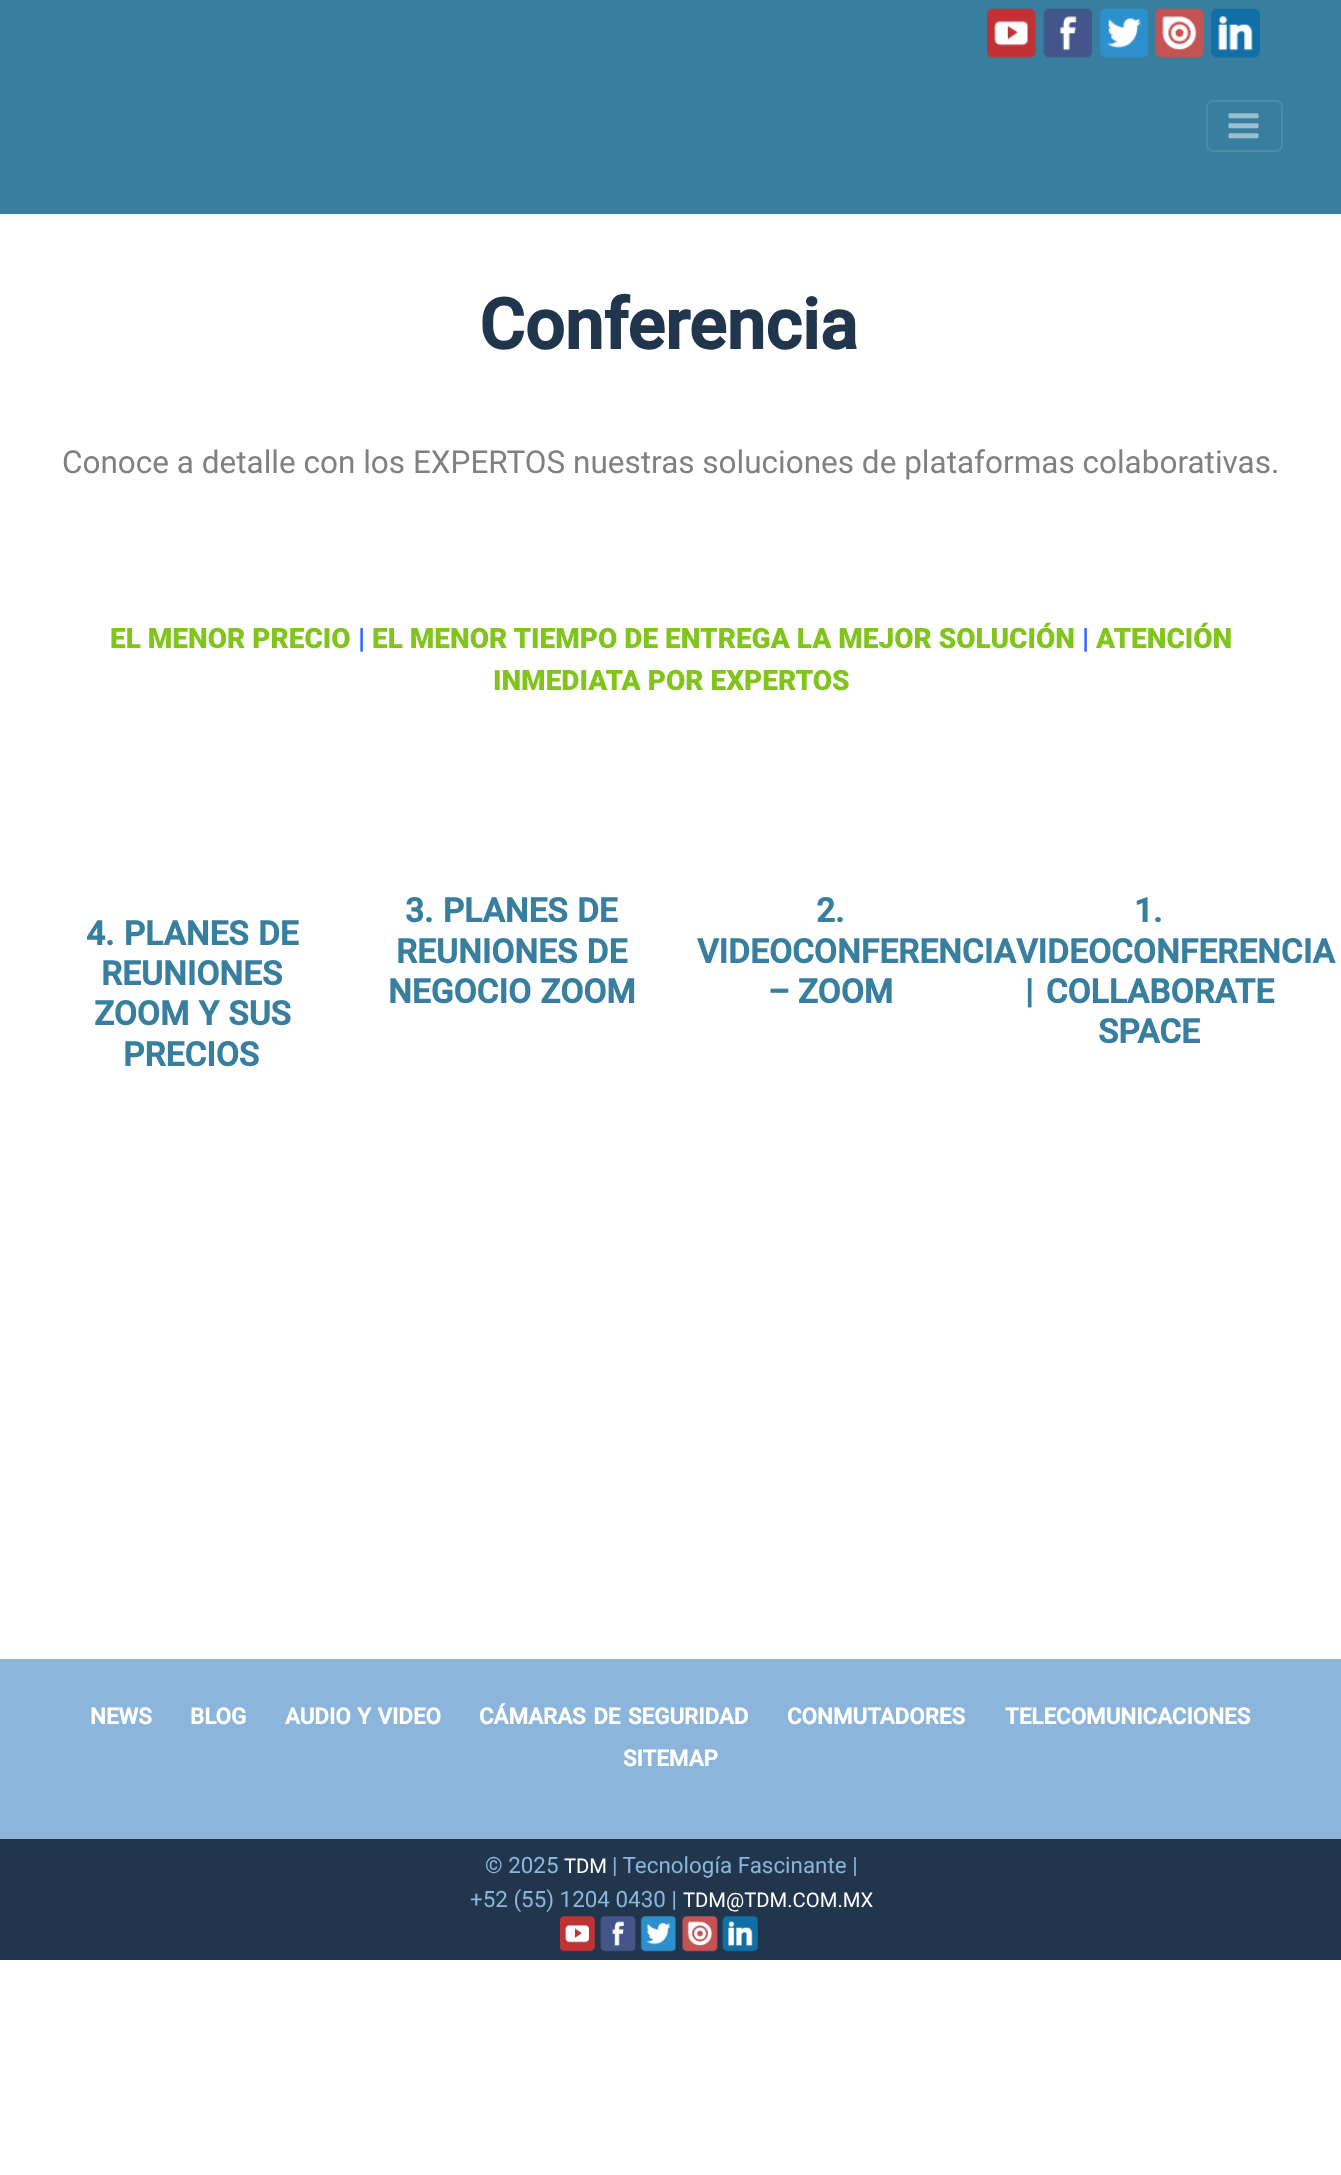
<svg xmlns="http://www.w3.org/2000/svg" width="1341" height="2175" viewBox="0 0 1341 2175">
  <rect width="100%" height="100%" fill="#fff"/>
  <path d="M0 0h1341v214H0z" fill="#387f9f"/>
  <image x="987" y="8" width="49" height="50" href="img/1.png"/>
  <image x="1043" y="8" width="49" height="50" href="img/2.png"/>
  <image x="1099" y="8" width="49" height="50" href="img/3.png"/>
  <image x="1155" y="8" width="49" height="50" href="img/4.png"/>
  <image x="1211" y="8" width="49" height="50" href="img/5.png"/>
  <rect x="1207" y="101" width="75" height="50" rx="6" fill="none" stroke="#4c8ca9" stroke-width="2"/>
  <image x="1228" y="113" width="31" height="26" href="img/6.png"/>
  <path d="M0 1659h1341v180H0z" fill="#8cb5db"/>
  <path d="M0 1839h1341v121H0z" fill="#21364c"/>
  <image x="560" y="1916" width="35" height="36" href="img/7.png"/>
  <image x="600" y="1916" width="36" height="36" href="img/8.png"/>
  <image x="640" y="1916" width="36" height="36" href="img/9.png"/>
  <image x="682" y="1916" width="36" height="36" href="img/10.png"/>
  <image x="722" y="1916" width="36" height="36" href="img/11.png"/>
  <text x="479" y="349" font-family="Roboto" font-size="70" font-weight="bold" fill="#21364c">Conferencia</text>
  <text x="62" y="473" font-family="Roboto" font-size="31.5" fill="#808080">Conoce a detalle con los EXPERTOS nuestras soluciones de plataformas colaborativas.</text>
  <text x="110" y="648" font-family="Roboto" font-size="28" font-weight="900" fill="#80c41c">EL MENOR PRECIO</text>
  <text x="358" y="648" font-family="Roboto" font-size="28" font-weight="900" fill="#36f">|</text>
  <text x="372" y="648" font-family="Roboto" font-size="28" font-weight="900" fill="#80c41c">EL MENOR TIEMPO DE ENTREGA LA MEJOR SOLUCIÓN</text>
  <text x="1082" y="648" font-family="Roboto" font-size="28" font-weight="900" fill="#36f">|</text>
  <g font-family="Roboto" font-size="28" font-weight="900" fill="#80c41c">
    <text x="1096" y="648">ATENCIÓN</text>
    <text x="493" y="690">INMEDIATA POR EXPERTOS</text>
  </g>
  <g font-family="Roboto" font-size="33.5" font-weight="bold" fill="#387f9f">
    <text x="86" y="945" word-spacing="1">4. PLANES DE</text>
    <text x="101" y="985">REUNIONES</text>
    <text x="94" y="1025" word-spacing="1">ZOOM Y SUS</text>
    <text x="123" y="1066">PRECIOS</text>
    <text x="405" y="922" word-spacing="1">3. PLANES DE</text>
    <text x="396" y="963" word-spacing="1">REUNIONES DE</text>
    <text x="388" y="1003" word-spacing="1">NEGOCIO ZOOM</text>
    <text x="816" y="922">2.</text>
    <text x="697" y="963">VIDEOCONFERENCIA</text>
    <text x="768" y="1003">– ZOOM</text>
    <text x="1134" y="922">1.</text>
    <text x="1016" y="963">VIDEOCONFERENCIA</text>
    <text x="1025" y="1003" word-spacing="4">| COLLABORATE</text>
    <text x="1098" y="1043">SPACE</text>
  </g>
  <g font-family="Roboto" font-size="22.4" font-weight="bold" fill="#fff">
    <text x="90" y="1724">NEWS</text>
    <text x="190" y="1724">BLOG</text>
    <text x="285" y="1724" word-spacing="1">AUDIO Y VIDEO</text>
    <text x="479" y="1724" word-spacing="2">CÁMARAS DE SEGURIDAD</text>
    <text x="787" y="1724">CONMUTADORES</text>
    <text x="1005" y="1724">TELECOMUNICACIONES</text>
    <text x="623" y="1766">SITEMAP</text>
  </g>
  <text x="485" y="1873" font-family="Roboto" font-size="22.4" fill="#8cb5db">© 2025</text>
  <text x="564" y="1873" font-family="Roboto" font-size="20.25" fill="#fff">TDM</text>
  <g font-family="Roboto" font-size="22.4" fill="#8cb5db">
    <text x="612" y="1873">| Tecnología Fascinante |</text>
    <text x="470" y="1907">+52 (55) 1204 0430 |</text>
  </g>
  <text x="683" y="1907" font-family="Roboto" font-size="20.25" fill="#fff">TDM@TDM.COM.MX</text>
</svg>
